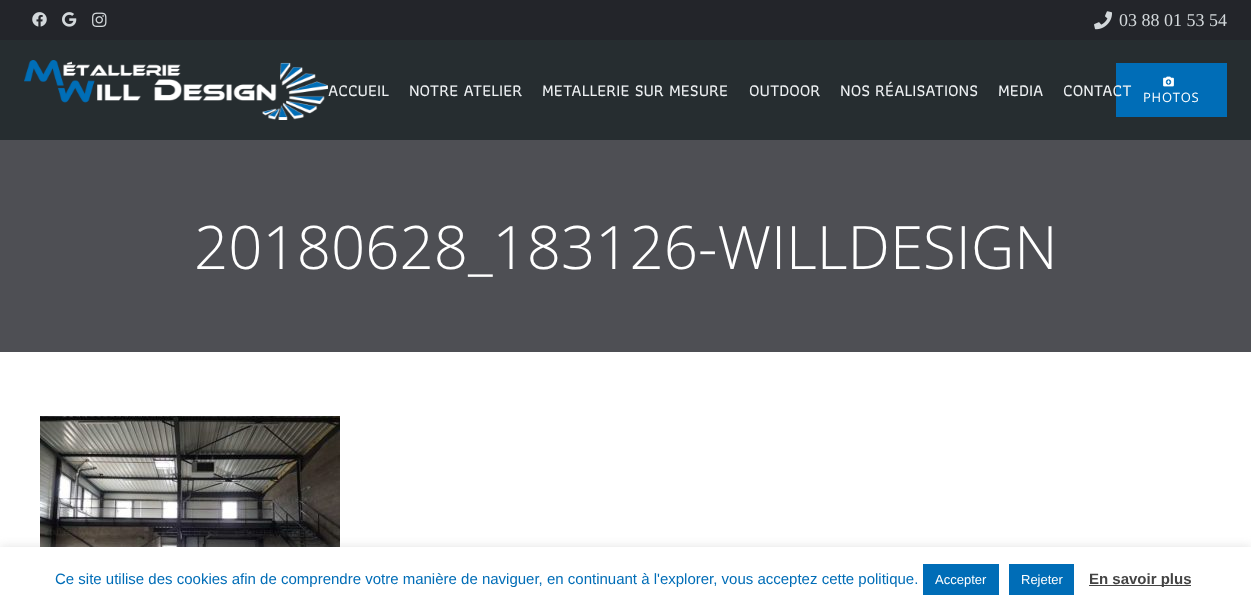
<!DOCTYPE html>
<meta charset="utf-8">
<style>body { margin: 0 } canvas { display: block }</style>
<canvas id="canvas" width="1251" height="612"></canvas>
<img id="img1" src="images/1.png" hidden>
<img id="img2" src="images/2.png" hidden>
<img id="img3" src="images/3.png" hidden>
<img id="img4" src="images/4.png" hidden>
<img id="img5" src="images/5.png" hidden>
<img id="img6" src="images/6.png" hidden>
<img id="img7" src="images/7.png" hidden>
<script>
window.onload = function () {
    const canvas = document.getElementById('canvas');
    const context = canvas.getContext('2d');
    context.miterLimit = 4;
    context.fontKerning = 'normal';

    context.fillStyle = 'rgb(255, 255, 255)';
    context.fillRect(0, 0, 1251, 612);
    context.fillStyle = 'rgb(35, 37, 42)';
    context.fillRect(0, 0, 1251, 40);
    context.drawImage(document.getElementById('img1'), 32, 12, 15, 15);
    context.drawImage(document.getElementById('img2'), 62, 12, 15, 15);
    context.drawImage(document.getElementById('img3'), 92, 12, 15, 15);
    context.drawImage(document.getElementById('img4'), 1094, 11, 18, 19);
    context.fillStyle = 'rgb(38, 45, 48)';
    context.fillRect(0, 40, 1251, 100);
    context.drawImage(document.getElementById('img5'), 24, 60, 304, 60);
    context.fillStyle = 'rgb(0, 109, 183)';
    context.fillRect(1116, 63, 111, 54);
    context.drawImage(document.getElementById('img6'), 1163, 76, 11, 11);
    context.fillStyle = 'rgb(78, 79, 84)';
    context.fillRect(0, 140, 1251, 212);
    context.drawImage(document.getElementById('img7'), 40, 416, 300, 131);
    context.fillStyle = 'rgba(172, 171, 171, 0.3)';
    context.filter = 'blur(5px)';
    context.beginPath();
    context.rect(0, 546, 1251, 65);
    context.fill();
    context.filter = 'none';
    context.fillStyle = 'rgb(255, 255, 255)';
    context.fillRect(0, 547, 1251, 65);
    context.fillStyle = 'rgb(0, 109, 183)';
    context.fillRect(923, 564, 76, 31);
    context.fillRect(1009, 564, 65, 31);
    context.fillStyle = 'rgb(68, 68, 68)';
    context.fillRect(1089, 585, 102, 1);
    context.font = '18px Liberation Serif';
    context.fillStyle = 'rgb(211, 216, 219)';
    context.fillText('03 88 01 53 54', 1119, 26);
    context.font = '500 17px Athiti';
    context.fillStyle = 'rgb(237, 240, 242)';
    context.fillText('ACCUEIL', 328, 96);
    context.fillText('NOTRE ATELIER', 409, 96);
    context.fillText('METALLERIE SUR MESURE', 542, 96);
    context.fillText('OUTDOOR', 749, 96);
    context.fillText('NOS RÉALISATIONS', 840, 96);
    context.fillText('MEDIA', 998, 96);
    context.fillText('CONTACT', 1063, 96);
    context.letterSpacing = '0.75px';
    context.font = '13px Open Sans';
    context.fillStyle = 'rgb(255, 255, 255)';
    context.fillText('PHOTOS', 1143, 102);
    context.letterSpacing = '0px';
    context.font = '300 60px Open Sans';
    context.fillText('20180628_183126-WILLDESIGN', 194, 269);
    context.font = '15px Liberation Sans';
    context.fillStyle = 'rgb(0, 109, 183)';
    context.fillText('Ce site utilise des cookies afin de comprendre votre manière de naviguer, en continuant à l\'explorer, vous acceptez cette politique.', 55, 584);
    context.font = '13px Liberation Sans';
    context.fillStyle = 'rgb(255, 255, 255)';
    context.fillText('Accepter', 935, 584);
    context.fillText('Rejeter', 1021, 584);
    context.font = 'bold 15px Liberation Sans';
    context.fillStyle = 'rgb(68, 68, 68)';
    context.fillText('En savoir plus', 1089, 584);
};
</script>
